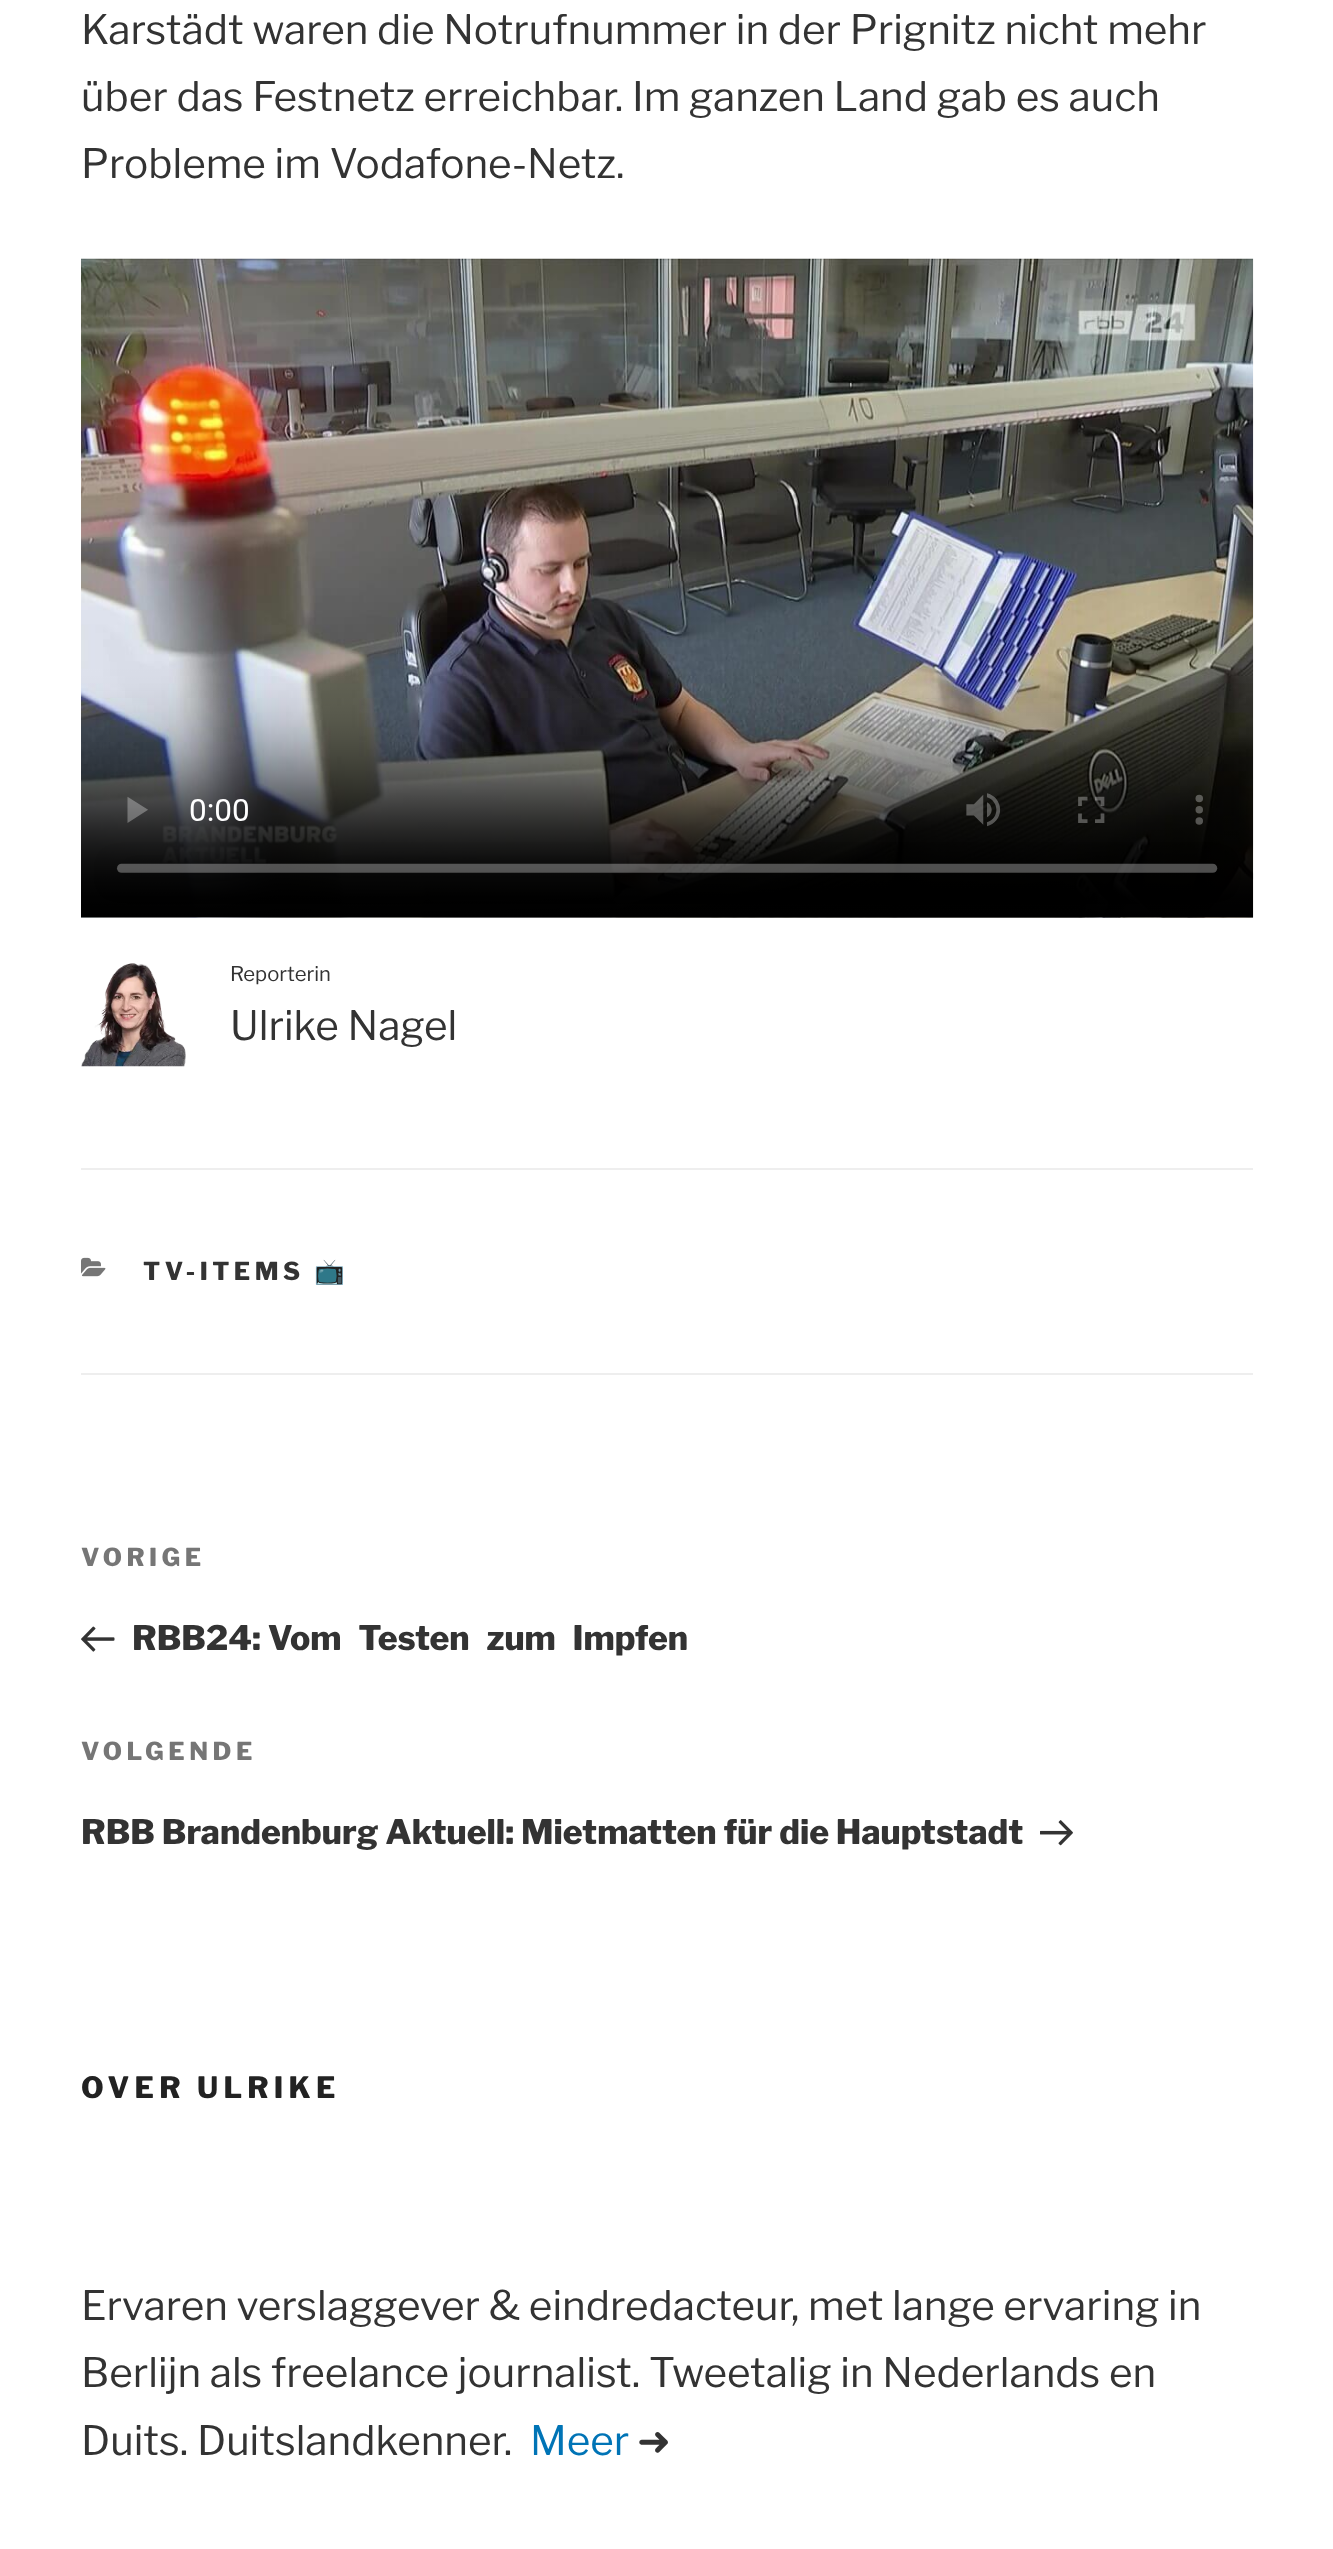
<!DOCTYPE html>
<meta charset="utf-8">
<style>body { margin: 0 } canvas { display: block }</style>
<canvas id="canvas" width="1333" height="2549"></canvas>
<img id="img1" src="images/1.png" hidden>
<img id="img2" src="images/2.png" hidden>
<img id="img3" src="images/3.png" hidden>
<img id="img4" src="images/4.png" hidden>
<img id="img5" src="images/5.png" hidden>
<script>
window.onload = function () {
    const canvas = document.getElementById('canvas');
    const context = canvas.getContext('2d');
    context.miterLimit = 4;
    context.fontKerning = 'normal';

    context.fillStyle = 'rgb(255, 255, 255)';
    context.fillRect(0, 0, 1333, 2549);
    context.drawImage(document.getElementById('img1'), 81, 258, 1173, 660);
    context.drawImage(document.getElementById('img2'), 81, 963, 105, 104);
    context.fillStyle = 'rgb(238, 238, 238)';
    context.fillRect(81, 1168, 1172, 2);
    context.fillRect(81, 1373, 1172, 2);
    context.drawImage(document.getElementById('img3'), 81, 1257, 25, 20);
    context.drawImage(document.getElementById('img4'), 81, 1626, 34, 26);
    context.drawImage(document.getElementById('img5'), 1040, 1820, 33, 26);
    context.font = '100 40.5px Libre Franklin';
    context.fillStyle = 'rgb(51, 51, 51)';
    context.fillText('Karstädt waren die Notrufnummer in der Prignitz nicht mehr', 81, 44);
    context.fillText('über das Festnetz erreichbar. Im ganzen Land gab es auch', 81, 111);
    context.fillText('Probleme im Vodafone-Netz.', 81, 178);
    context.font = '100 20.25px Libre Franklin';
    context.fillText('Reporterin', 230, 981);
    context.font = '100 40.5px Libre Franklin';
    context.fillText('Ulrike Nagel', 230, 1040);
    context.letterSpacing = '4.5px';
    context.font = '100 24.75px "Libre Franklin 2"';
    context.fillText('TV-ITEMS', 143, 1280);
    context.font = 'bold 24.75px Noto Color Emoji';
    context.fillText('📺', 314, 1280);
    context.font = '100 24.75px "Libre Franklin 2"';
    context.fillStyle = 'rgb(118, 118, 118)';
    context.fillText('VORIGE', 81, 1566);
    context.letterSpacing = '0px';
    context.font = '100 33.75px "Libre Franklin 2"';
    context.fillStyle = 'rgb(51, 51, 51)';
    context.fillText('RBB24: Vom Testen zum Impfen', 132, 1650);
    context.letterSpacing = '4.5px';
    context.font = '100 24.75px "Libre Franklin 2"';
    context.fillStyle = 'rgb(118, 118, 118)';
    context.fillText('VOLGENDE', 81, 1760);
    context.letterSpacing = '0px';
    context.font = '100 33.75px "Libre Franklin 2"';
    context.fillStyle = 'rgb(51, 51, 51)';
    context.fillText('RBB Brandenburg Aktuell: Mietmatten für die Hauptstadt', 81, 1844);
    context.letterSpacing = '5.25px';
    context.font = '100 29.25px "Libre Franklin 2"';
    context.fillStyle = 'rgb(34, 34, 34)';
    context.fillText('OVER ULRIKE', 81, 2098);
    context.letterSpacing = '0px';
    context.font = '100 40.5px Libre Franklin';
    context.fillStyle = 'rgb(51, 51, 51)';
    context.fillText('Ervaren verslaggever & eindredacteur, met lange ervaring in', 81, 2320);
    context.fillText('Berlijn als freelance journalist. Tweetalig in Nederlands en', 81, 2387);
    context.fillText('Duits. Duitslandkenner.', 81, 2455);
    context.fillStyle = 'rgb(0, 116, 182)';
    context.fillText('Meer', 530, 2455);
    context.font = '40.5px DejaVu Sans';
    context.fillStyle = 'rgb(51, 51, 51)';
    context.fillText('➜', 637, 2455);
};
</script>
